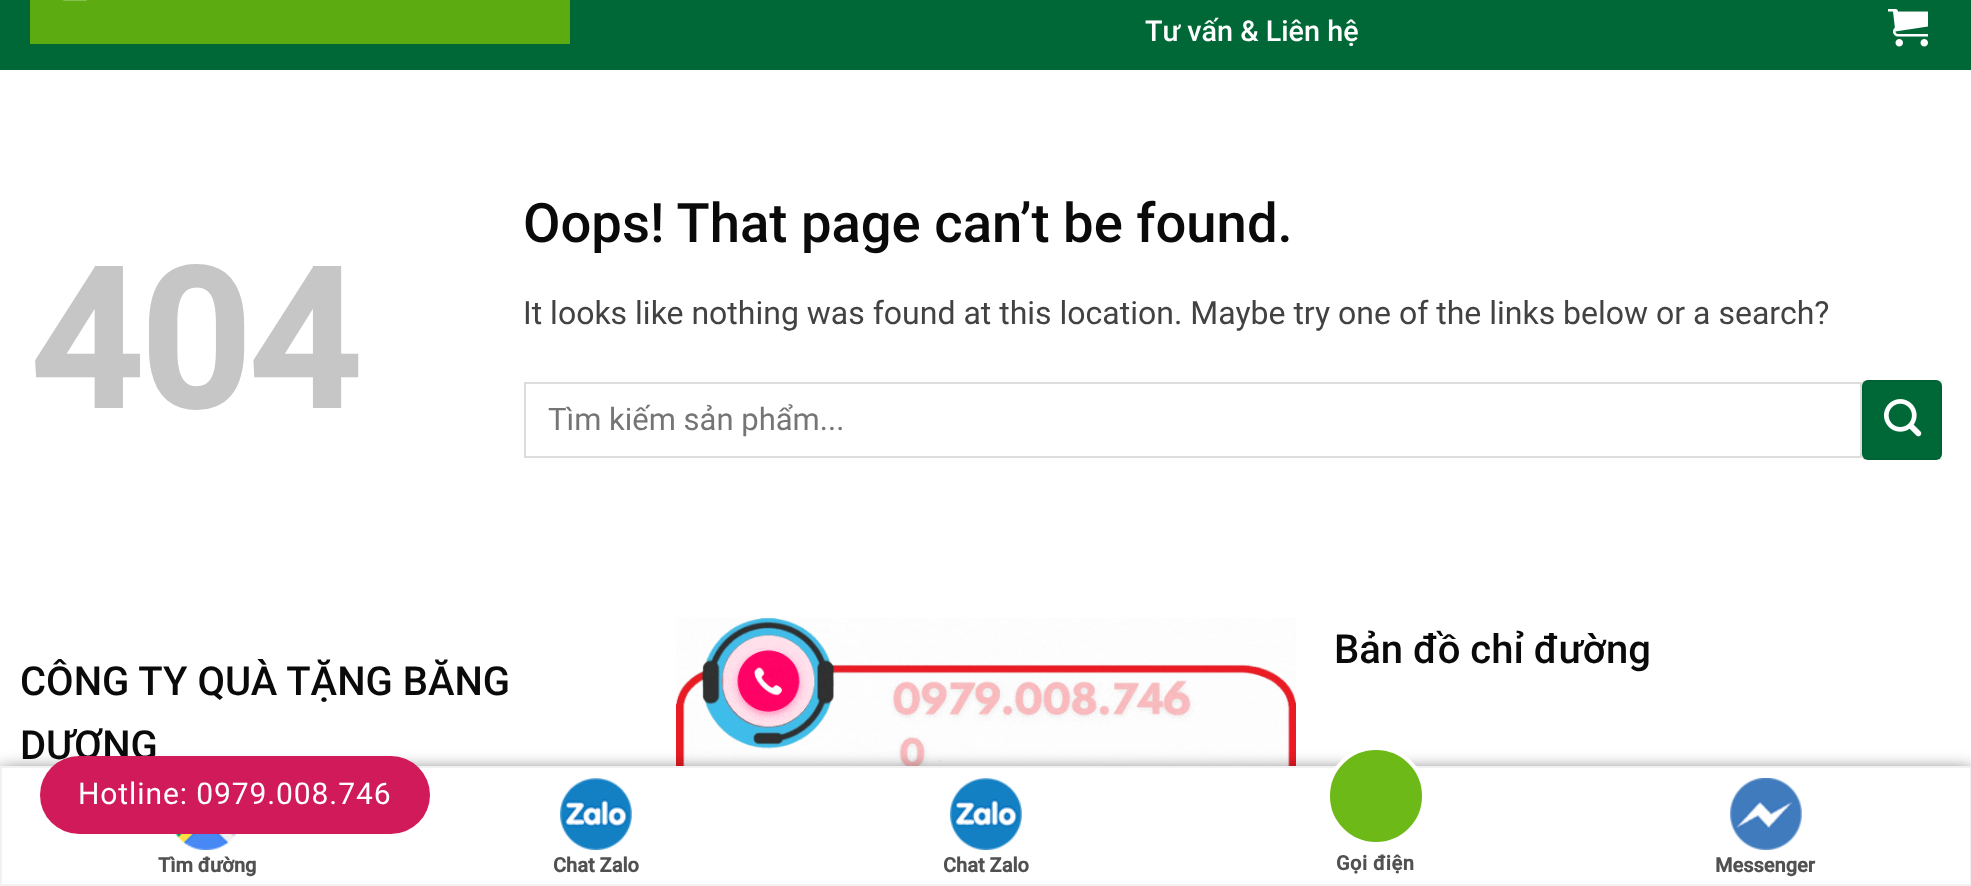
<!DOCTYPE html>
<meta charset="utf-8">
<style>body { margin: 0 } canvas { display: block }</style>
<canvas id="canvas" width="1971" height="886"></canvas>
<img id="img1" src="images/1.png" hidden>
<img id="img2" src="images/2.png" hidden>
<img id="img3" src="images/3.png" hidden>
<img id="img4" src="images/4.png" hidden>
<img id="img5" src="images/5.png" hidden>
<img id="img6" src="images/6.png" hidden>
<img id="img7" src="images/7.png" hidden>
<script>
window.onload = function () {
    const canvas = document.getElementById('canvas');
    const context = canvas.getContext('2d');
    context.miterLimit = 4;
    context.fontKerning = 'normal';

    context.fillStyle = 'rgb(255, 255, 255)';
    context.fillRect(0, 0, 1971, 886);
    context.fillStyle = 'rgb(0, 104, 55)';
    context.fillRect(0, 0, 1971, 70);
    context.fillStyle = 'rgb(92, 171, 16)';
    context.fillRect(30, 0, 540, 44);
    context.drawImage(document.getElementById('img1'), 63, 0, 24, 1);
    context.drawImage(document.getElementById('img2'), 1888, 9, 40, 38);
    context.strokeStyle = 'rgb(221, 221, 221)';
    context.lineWidth = 2;
    context.strokeRect(525, 383, 1336, 74);
    context.fillStyle = 'rgb(0, 104, 55)';
    context.beginPath();
    context.roundRect(1862, 380, 80, 80, 6);
    context.fill();
    context.strokeStyle = 'rgba(0, 0, 0, 0.05)';
    context.strokeRect(1863, 381, 78, 78);
    context.drawImage(document.getElementById('img3'), 1884, 399, 38, 38);
    context.drawImage(document.getElementById('img4'), 676, 618, 620, 148);
    context.fillStyle = 'rgb(0, 0, 0)';
    context.filter = 'blur(10px)';
    context.beginPath();
    context.rect(0, 774, 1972, 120);
    context.fill();
    context.filter = 'none';
    context.fillStyle = 'rgb(255, 255, 255)';
    context.beginPath();
    context.rect(1, 767, 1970, 118);
    context.fill();
    context.strokeStyle = 'rgb(242, 242, 242)';
    context.stroke();
    context.drawImage(document.getElementById('img5'), 175, 834, 62, 16);
    context.drawImage(document.getElementById('img6'), 560, 778, 72, 72);
    context.drawImage(document.getElementById('img6'), 950, 778, 72, 72);
    context.fillStyle = 'rgb(108, 185, 23)';
    context.beginPath();
    context.arc(1376, 796, 48, 0, 2 * Math.PI);
    context.fill();
    context.strokeStyle = 'rgb(255, 255, 255)';
    context.lineWidth = 4;
    context.stroke();
    context.drawImage(document.getElementById('img7'), 1730, 778, 72, 72);
    context.font = '500 28.75px Roboto';
    context.fillStyle = 'rgb(255, 255, 255)';
    context.fillText('Tư vấn & Liên hệ', 1145, 41);
    context.font = 'bold 192px Roboto';
    context.fillStyle = 'rgb(198, 198, 198)';
    context.fillText('404', 30, 408);
    context.font = '500 54.4px Roboto';
    context.fillStyle = 'rgb(10, 10, 10)';
    context.fillText('Oops! That page can’t be found.', 523, 242);
    context.font = '32px Roboto';
    context.fillStyle = 'rgb(66, 66, 66)';
    context.fillText('It looks like nothing was found at this location. Maybe try one of the links below or a search?', 523, 324);
    context.font = '31px Roboto';
    context.fillStyle = 'rgb(117, 117, 117)';
    context.fillText('Tìm kiếm sản phẩm...', 548, 430);
    context.font = '500 40px Roboto';
    context.fillStyle = 'rgb(10, 10, 10)';
    context.fillText('Bản đồ chỉ đường', 1334, 663);
    context.fillText('CÔNG TY QUÀ TẶNG BĂNG', 20, 695);
    context.fillText('DƯƠNG', 20, 759);
    context.fillStyle = 'rgb(209, 26, 89)';
    context.beginPath();
    context.roundRect(40, 756, 390, 78, 39);
    context.fill();
    context.letterSpacing = '0.9px';
    context.font = '30px Roboto';
    context.fillStyle = 'rgb(255, 255, 255)';
    context.fillText('Hotline: 0979.008.746', 78, 804);
    context.letterSpacing = '0px';
    context.font = 'bold 20px Roboto';
    context.fillStyle = 'rgb(81, 81, 81)';
    context.fillText('Tìm đường', 158, 872);
    context.fillText('Chat Zalo', 553, 872);
    context.fillText('Chat Zalo', 943, 872);
    context.letterSpacing = '0.5px';
    context.fillText('Gọi điện', 1336, 870);
    context.letterSpacing = '0px';
    context.fillText('Messenger', 1715, 872);
};
</script>
